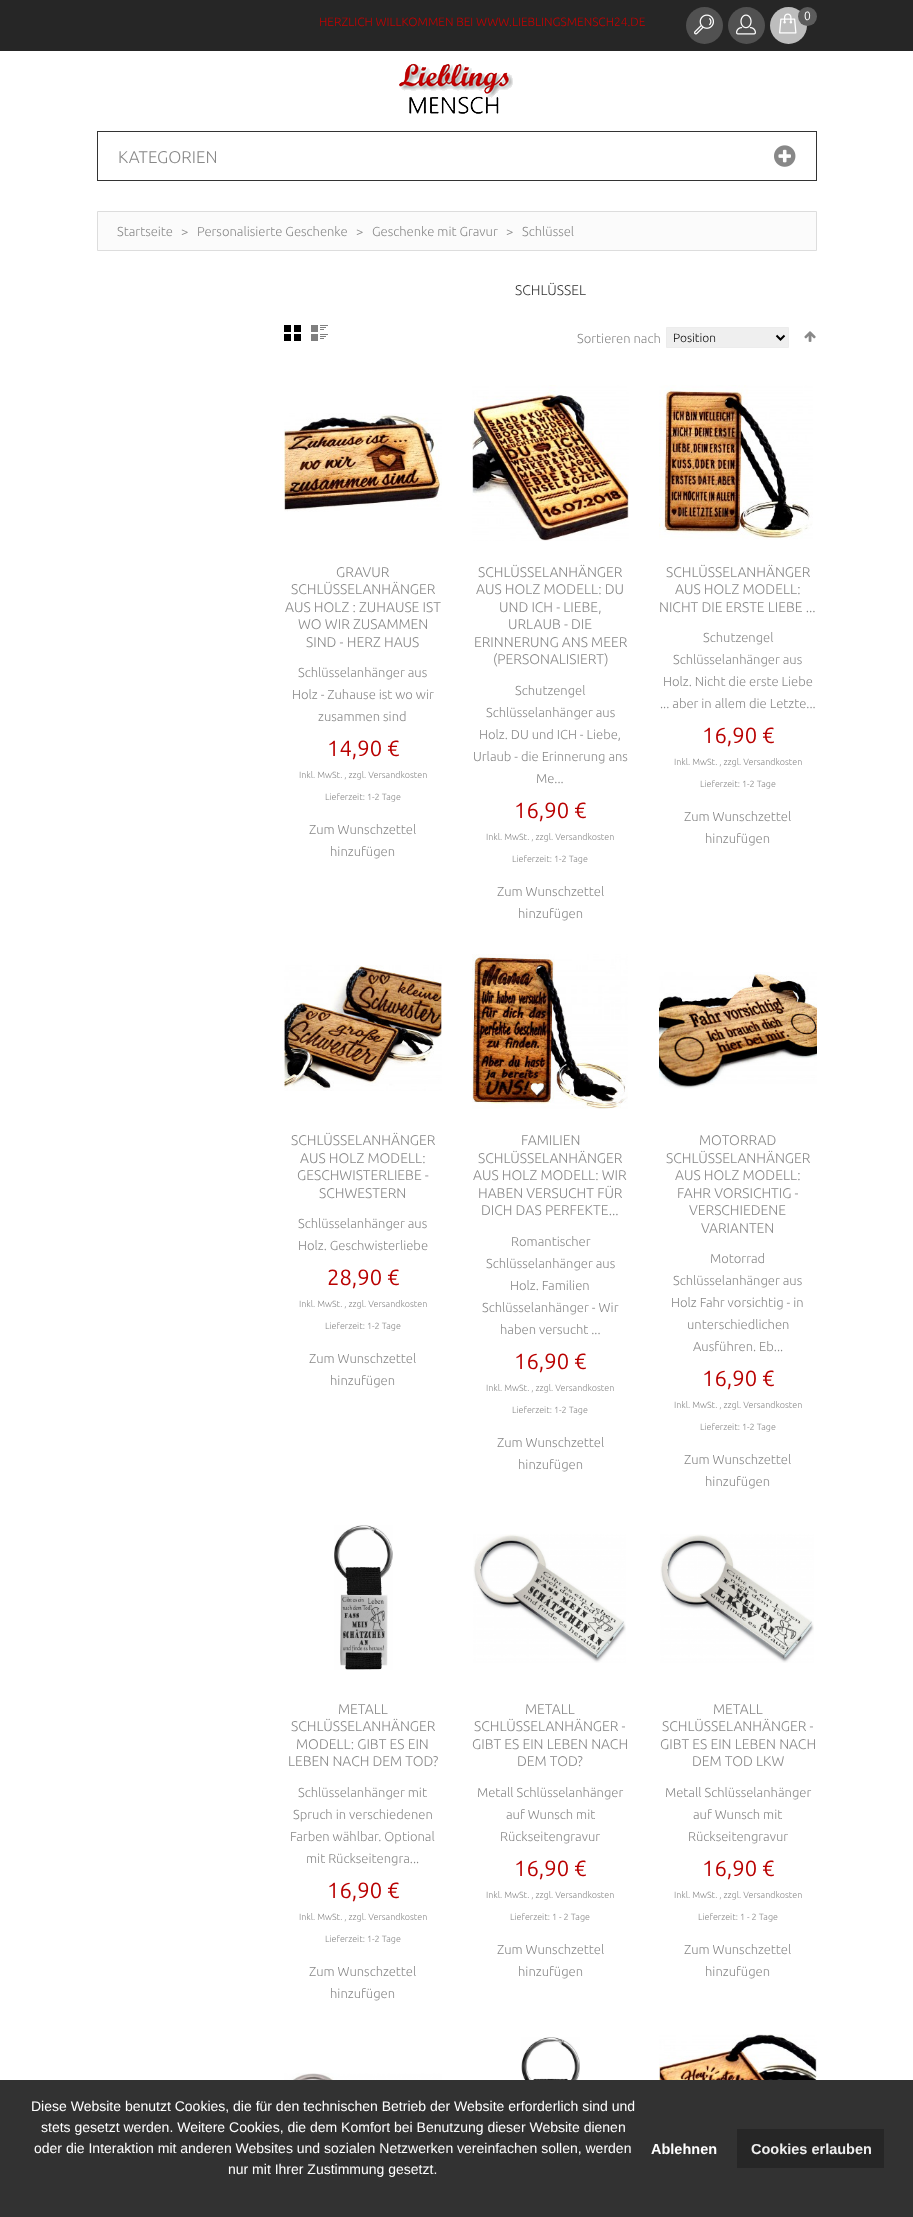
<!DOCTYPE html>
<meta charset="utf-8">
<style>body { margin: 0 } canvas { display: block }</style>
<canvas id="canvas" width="913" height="2217"></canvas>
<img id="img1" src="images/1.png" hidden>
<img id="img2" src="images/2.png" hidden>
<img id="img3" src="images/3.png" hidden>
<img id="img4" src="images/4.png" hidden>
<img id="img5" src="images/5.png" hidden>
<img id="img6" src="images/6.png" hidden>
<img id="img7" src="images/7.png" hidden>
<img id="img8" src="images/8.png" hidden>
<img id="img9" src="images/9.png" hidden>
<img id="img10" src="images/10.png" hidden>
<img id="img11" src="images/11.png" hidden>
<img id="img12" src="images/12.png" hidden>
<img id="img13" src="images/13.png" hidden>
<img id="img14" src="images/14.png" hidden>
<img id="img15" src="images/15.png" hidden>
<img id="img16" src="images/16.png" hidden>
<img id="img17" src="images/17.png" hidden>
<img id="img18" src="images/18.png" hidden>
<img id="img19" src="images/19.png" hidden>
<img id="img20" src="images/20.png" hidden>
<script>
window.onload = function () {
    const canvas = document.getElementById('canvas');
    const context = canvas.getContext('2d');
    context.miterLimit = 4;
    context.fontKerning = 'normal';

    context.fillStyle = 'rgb(38, 38, 38)';
    context.fillRect(0, 0, 913, 2217);
    context.fillStyle = 'rgb(81, 81, 81)';
    context.beginPath();
    context.arc(704.5, 25.5, 18.5, 0, 2 * Math.PI);
    context.fill();
    context.drawImage(document.getElementById('img1'), 694, 14, 20, 21);
    context.beginPath();
    context.arc(746.5, 25.5, 18.5, 0, 2 * Math.PI);
    context.fill();
    context.drawImage(document.getElementById('img2'), 736, 14, 20, 21);
    context.fillStyle = 'rgb(189, 189, 189)';
    context.beginPath();
    context.arc(788.5, 25.5, 18.5, 0, 2 * Math.PI);
    context.fill();
    context.drawImage(document.getElementById('img3'), 779, 13, 18, 21);
    context.fillStyle = 'rgb(92, 92, 92)';
    context.beginPath();
    context.arc(807.5, 16.5, 9.5, 0, 2 * Math.PI);
    context.fill();
    context.fillStyle = 'rgb(255, 255, 255)';
    context.fillRect(0, 51, 913, 2029);
    context.drawImage(document.getElementById('img4'), 399, 63, 114, 51);
    context.strokeStyle = 'rgb(51, 51, 51)';
    context.strokeRect(97.5, 131.5, 719, 49);
    context.drawImage(document.getElementById('img5'), 774, 145, 22, 22);
    context.fillStyle = 'rgb(251, 251, 251)';
    context.beginPath();
    context.rect(97.5, 211.5, 719, 39);
    context.fill();
    context.strokeStyle = 'rgb(221, 221, 221)';
    context.stroke();
    context.drawImage(document.getElementById('img6'), 284, 325, 17, 16);
    context.drawImage(document.getElementById('img7'), 311, 325, 17, 16);
    context.fillStyle = 'rgb(239, 239, 239)';
    context.beginPath();
    context.rect(666.5, 327.5, 122, 20);
    context.fill();
    context.strokeStyle = 'rgb(236, 236, 236)';
    context.stroke();
    context.beginPath();
    context.moveTo(776.5, 335.5);
    context.lineTo(780.5, 339.5);
    context.lineTo(784.5, 335.5);
    context.strokeStyle = 'rgb(0, 0, 0)';
    context.lineWidth = 2;
    context.stroke();
    context.drawImage(document.getElementById('img8'), 804, 331, 12, 11);
    context.drawImage(document.getElementById('img9'), 284, 413, 158, 99);
    context.drawImage(document.getElementById('img10'), 472, 385, 157, 156);
    context.drawImage(document.getElementById('img11'), 659, 385, 154, 155);
    context.drawImage(document.getElementById('img12'), 284, 965, 158, 126);
    context.drawImage(document.getElementById('img13'), 472, 954, 156, 155);
    context.drawImage(document.getElementById('img14'), 659, 972, 158, 117);
    context.drawImage(document.getElementById('img15'), 334, 1525, 59, 145);
    context.drawImage(document.getElementById('img16'), 473, 1534, 153, 129);
    context.drawImage(document.getElementById('img17'), 660, 1534, 154, 129);
    context.drawImage(document.getElementById('img18'), 284, 2073, 158, 7);
    context.drawImage(document.getElementById('img19'), 521, 2037, 59, 43);
    context.drawImage(document.getElementById('img20'), 659, 2034, 158, 46);
    context.fillStyle = 'rgb(50, 50, 50)';
    context.fillRect(0, 2080, 913, 137);
    context.fillStyle = 'rgb(38, 38, 38)';
    context.fillRect(737, 2129, 147, 39);
    context.font = '12px Ubuntu';
    context.fillStyle = 'rgb(255, 255, 255)';
    context.fillText('0', 804, 20);
    context.font = '300 12px Ubuntu';
    context.fillStyle = 'rgb(196, 0, 0)';
    context.fillText('HERZLICH WILLKOMMEN BEI WWW.LIEBLINGSMENSCH24.DE', 319, 26);
    context.font = '300 17px Ubuntu';
    context.fillStyle = 'rgb(136, 136, 136)';
    context.fillText('KATEGORIEN', 118, 163);
    context.font = '300 13px Ubuntu';
    context.fillText('Startseite', 117, 236);
    context.fillText('>', 181, 236);
    context.fillText('Personalisierte Geschenke', 197, 236);
    context.fillText('>', 356, 236);
    context.fillText('Geschenke mit Gravur', 372, 236);
    context.fillText('>', 506, 236);
    context.fillText('Schlüssel', 522, 236);
    context.font = '300 14px Ubuntu';
    context.fillStyle = 'rgb(51, 51, 51)';
    context.fillText('SCHLÜSSEL', 515, 295);
    context.font = '300 13px Ubuntu';
    context.fillStyle = 'rgb(136, 136, 136)';
    context.fillText('Sortieren nach', 577, 343);
    context.font = '300 12px Ubuntu';
    context.fillStyle = 'rgb(0, 0, 0)';
    context.fillText('Position', 673, 342);
    context.font = '300 14px Ubuntu';
    context.fillStyle = 'rgb(136, 136, 136)';
    context.fillText('GRAVUR', 336, 577);
    context.fillText('SCHLÜSSELANHÄNGER', 291, 594);
    context.fillText('AUS HOLZ : ZUHAUSE IST', 285, 612);
    context.fillText('WO WIR ZUSAMMEN', 298, 629);
    context.fillText('SIND - HERZ HAUS', 306, 647);
    context.font = '300 13px Ubuntu';
    context.fillText('Schlüsselanhänger aus', 298, 677);
    context.fillText('Holz - Zuhause ist wo wir', 292, 699);
    context.fillText('zusammen sind', 318, 721);
    context.font = '22px Ubuntu';
    context.fillStyle = 'rgb(185, 1, 0)';
    context.fillText('14,90 €', 327, 756);
    context.font = '300 9px Ubuntu';
    context.fillStyle = 'rgb(136, 136, 136)';
    context.fillText('Inkl. MwSt. , zzgl. Versandkosten', 299, 778);
    context.fillText('Lieferzeit: 1-2 Tage', 325, 800);
    context.font = '300 13px Ubuntu';
    context.fillText('Zum Wunschzettel', 309, 834);
    context.fillText('hinzufügen', 330, 856);
    context.font = '300 14px Ubuntu';
    context.fillText('SCHLÜSSELANHÄNGER', 478, 577);
    context.fillText('AUS HOLZ MODELL: DU', 476, 594);
    context.fillText('UND ICH - LIEBE,', 499, 612);
    context.fillText('URLAUB - DIE', 508, 629);
    context.fillText('ERINNERUNG ANS MEER', 474, 647);
    context.fillText('(PERSONALISIERT)', 493, 664);
    context.font = '300 13px Ubuntu';
    context.fillText('Schutzengel', 515, 695);
    context.fillText('Schlüsselanhänger aus', 486, 717);
    context.fillText('Holz. DU und ICH - Liebe,', 479, 739);
    context.fillText('Urlaub - die Erinnerung ans', 473, 761);
    context.fillText('Me...', 536, 783);
    context.font = '22px Ubuntu';
    context.fillStyle = 'rgb(185, 1, 0)';
    context.fillText('16,90 €', 514, 818);
    context.font = '300 9px Ubuntu';
    context.fillStyle = 'rgb(136, 136, 136)';
    context.fillText('Inkl. MwSt. , zzgl. Versandkosten', 486, 840);
    context.fillText('Lieferzeit: 1-2 Tage', 512, 862);
    context.font = '300 13px Ubuntu';
    context.fillText('Zum Wunschzettel', 497, 896);
    context.fillText('hinzufügen', 518, 918);
    context.font = '300 14px Ubuntu';
    context.fillText('SCHLÜSSELANHÄNGER', 666, 577);
    context.fillText('AUS HOLZ MODELL:', 675, 594);
    context.fillText('NICHT DIE ERSTE LIEBE ...', 659, 612);
    context.font = '300 13px Ubuntu';
    context.fillText('Schutzengel', 703, 642);
    context.fillText('Schlüsselanhänger aus', 673, 664);
    context.fillText('Holz. Nicht die erste Liebe', 663, 686);
    context.fillText('... aber in allem die Letzte...', 660, 708);
    context.font = '22px Ubuntu';
    context.fillStyle = 'rgb(185, 1, 0)';
    context.fillText('16,90 €', 702, 743);
    context.font = '300 9px Ubuntu';
    context.fillStyle = 'rgb(136, 136, 136)';
    context.fillText('Inkl. MwSt. , zzgl. Versandkosten', 674, 765);
    context.fillText('Lieferzeit: 1-2 Tage', 700, 787);
    context.font = '300 13px Ubuntu';
    context.fillText('Zum Wunschzettel', 684, 821);
    context.fillText('hinzufügen', 705, 843);
    context.font = '300 14px Ubuntu';
    context.fillText('SCHLÜSSELANHÄNGER', 291, 1145);
    context.fillText('AUS HOLZ MODELL:', 300, 1163);
    context.fillText('GESCHWISTERLIEBE -', 297, 1180);
    context.fillText('SCHWESTERN', 319, 1198);
    context.font = '300 13px Ubuntu';
    context.fillText('Schlüsselanhänger aus', 298, 1228);
    context.fillText('Holz. Geschwisterliebe', 298, 1250);
    context.font = '22px Ubuntu';
    context.fillStyle = 'rgb(185, 1, 0)';
    context.fillText('28,90 €', 327, 1285);
    context.font = '300 9px Ubuntu';
    context.fillStyle = 'rgb(136, 136, 136)';
    context.fillText('Inkl. MwSt. , zzgl. Versandkosten', 299, 1307);
    context.fillText('Lieferzeit: 1-2 Tage', 325, 1329);
    context.font = '300 13px Ubuntu';
    context.fillText('Zum Wunschzettel', 309, 1363);
    context.fillText('hinzufügen', 330, 1385);
    context.font = '300 14px Ubuntu';
    context.fillText('FAMILIEN', 521, 1145);
    context.fillText('SCHLÜSSELANHÄNGER', 478, 1163);
    context.fillText('AUS HOLZ MODELL: WIR', 473, 1180);
    context.fillText('HABEN VERSUCHT FÜR', 478, 1198);
    context.fillText('DICH DAS PERFEKTE...', 481, 1215);
    context.font = '300 13px Ubuntu';
    context.fillText('Romantischer', 511, 1246);
    context.fillText('Schlüsselanhänger aus', 486, 1268);
    context.fillText('Holz. Familien', 510, 1290);
    context.fillText('Schlüsselanhänger - Wir', 482, 1312);
    context.fillText('haben versucht ...', 500, 1334);
    context.font = '22px Ubuntu';
    context.fillStyle = 'rgb(185, 1, 0)';
    context.fillText('16,90 €', 514, 1369);
    context.font = '300 9px Ubuntu';
    context.fillStyle = 'rgb(136, 136, 136)';
    context.fillText('Inkl. MwSt. , zzgl. Versandkosten', 486, 1391);
    context.fillText('Lieferzeit: 1-2 Tage', 512, 1413);
    context.font = '300 13px Ubuntu';
    context.fillText('Zum Wunschzettel', 497, 1447);
    context.fillText('hinzufügen', 518, 1469);
    context.font = '300 14px Ubuntu';
    context.fillText('MOTORRAD', 699, 1145);
    context.fillText('SCHLÜSSELANHÄNGER', 666, 1163);
    context.fillText('AUS HOLZ MODELL:', 675, 1180);
    context.fillText('FAHR VORSICHTIG -', 677, 1198);
    context.fillText('VERSCHIEDENE', 689, 1215);
    context.fillText('VARIANTEN', 701, 1233);
    context.font = '300 13px Ubuntu';
    context.fillText('Motorrad', 710, 1263);
    context.fillText('Schlüsselanhänger aus', 673, 1285);
    context.fillText('Holz Fahr vorsichtig - in', 671, 1307);
    context.fillText('unterschiedlichen', 687, 1329);
    context.fillText('Ausführen. Eb...', 693, 1351);
    context.font = '22px Ubuntu';
    context.fillStyle = 'rgb(185, 1, 0)';
    context.fillText('16,90 €', 702, 1386);
    context.font = '300 9px Ubuntu';
    context.fillStyle = 'rgb(136, 136, 136)';
    context.fillText('Inkl. MwSt. , zzgl. Versandkosten', 674, 1408);
    context.fillText('Lieferzeit: 1-2 Tage', 700, 1430);
    context.font = '300 13px Ubuntu';
    context.fillText('Zum Wunschzettel', 684, 1464);
    context.fillText('hinzufügen', 705, 1486);
    context.font = '300 14px Ubuntu';
    context.fillText('METALL', 338, 1714);
    context.fillText('SCHLÜSSELANHÄNGER', 291, 1731);
    context.fillText('MODELL: GIBT ES EIN', 296, 1749);
    context.fillText('LEBEN NACH DEM TOD?', 288, 1766);
    context.font = '300 13px Ubuntu';
    context.fillText('Schlüsselanhänger mit', 298, 1797);
    context.fillText('Spruch in verschiedenen', 293, 1819);
    context.fillText('Farben wählbar. Optional', 290, 1841);
    context.fillText('mit Rückseitengra...', 306, 1863);
    context.font = '22px Ubuntu';
    context.fillStyle = 'rgb(185, 1, 0)';
    context.fillText('16,90 €', 327, 1898);
    context.font = '300 9px Ubuntu';
    context.fillStyle = 'rgb(136, 136, 136)';
    context.fillText('Inkl. MwSt. , zzgl. Versandkosten', 299, 1920);
    context.fillText('Lieferzeit: 1-2 Tage', 325, 1942);
    context.font = '300 13px Ubuntu';
    context.fillText('Zum Wunschzettel', 309, 1976);
    context.fillText('hinzufügen', 330, 1998);
    context.font = '300 14px Ubuntu';
    context.fillText('METALL', 525, 1714);
    context.fillText('SCHLÜSSELANHÄNGER -', 474, 1731);
    context.fillText('GIBT ES EIN LEBEN NACH', 472, 1749);
    context.fillText('DEM TOD?', 517, 1766);
    context.font = '300 13px Ubuntu';
    context.fillText('Metall Schlüsselanhänger', 477, 1797);
    context.fillText('auf Wunsch mit', 506, 1819);
    context.fillText('Rückseitengravur', 500, 1841);
    context.font = '22px Ubuntu';
    context.fillStyle = 'rgb(185, 1, 0)';
    context.fillText('16,90 €', 514, 1876);
    context.font = '300 9px Ubuntu';
    context.fillStyle = 'rgb(136, 136, 136)';
    context.fillText('Inkl. MwSt. , zzgl. Versandkosten', 486, 1898);
    context.fillText('Lieferzeit: 1 - 2 Tage', 510, 1920);
    context.font = '300 13px Ubuntu';
    context.fillText('Zum Wunschzettel', 497, 1954);
    context.fillText('hinzufügen', 518, 1976);
    context.font = '300 14px Ubuntu';
    context.fillText('METALL', 713, 1714);
    context.fillText('SCHLÜSSELANHÄNGER -', 662, 1731);
    context.fillText('GIBT ES EIN LEBEN NACH', 660, 1749);
    context.fillText('DEM TOD LKW', 692, 1766);
    context.font = '300 13px Ubuntu';
    context.fillText('Metall Schlüsselanhänger', 665, 1797);
    context.fillText('auf Wunsch mit', 693, 1819);
    context.fillText('Rückseitengravur', 688, 1841);
    context.font = '22px Ubuntu';
    context.fillStyle = 'rgb(185, 1, 0)';
    context.fillText('16,90 €', 702, 1876);
    context.font = '300 9px Ubuntu';
    context.fillStyle = 'rgb(136, 136, 136)';
    context.fillText('Inkl. MwSt. , zzgl. Versandkosten', 674, 1898);
    context.fillText('Lieferzeit: 1 - 2 Tage', 698, 1920);
    context.font = '300 13px Ubuntu';
    context.fillText('Zum Wunschzettel', 684, 1954);
    context.fillText('hinzufügen', 705, 1976);
    context.font = '14px Liberation Sans';
    context.fillStyle = 'rgb(255, 255, 255)';
    context.fillText('Diese Website benutzt Cookies, die für den technischen Betrieb der Website erforderlich sind und', 31, 2111);
    context.fillText('stets gesetzt werden. Weitere Cookies, die dem Komfort bei Benutzung dieser Website dienen', 41, 2132);
    context.fillText('oder die Interaktion mit anderen Websites und sozialen Netzwerken vereinfachen sollen, werden', 34, 2153);
    context.fillText('nur mit Ihrer Zustimmung gesetzt.', 228, 2174);
    context.font = 'bold 14.5px Liberation Sans';
    context.fillText('Ablehnen', 651, 2154);
    context.fillStyle = 'rgb(238, 238, 238)';
    context.fillText('Cookies erlauben', 751, 2154);
};
</script>
